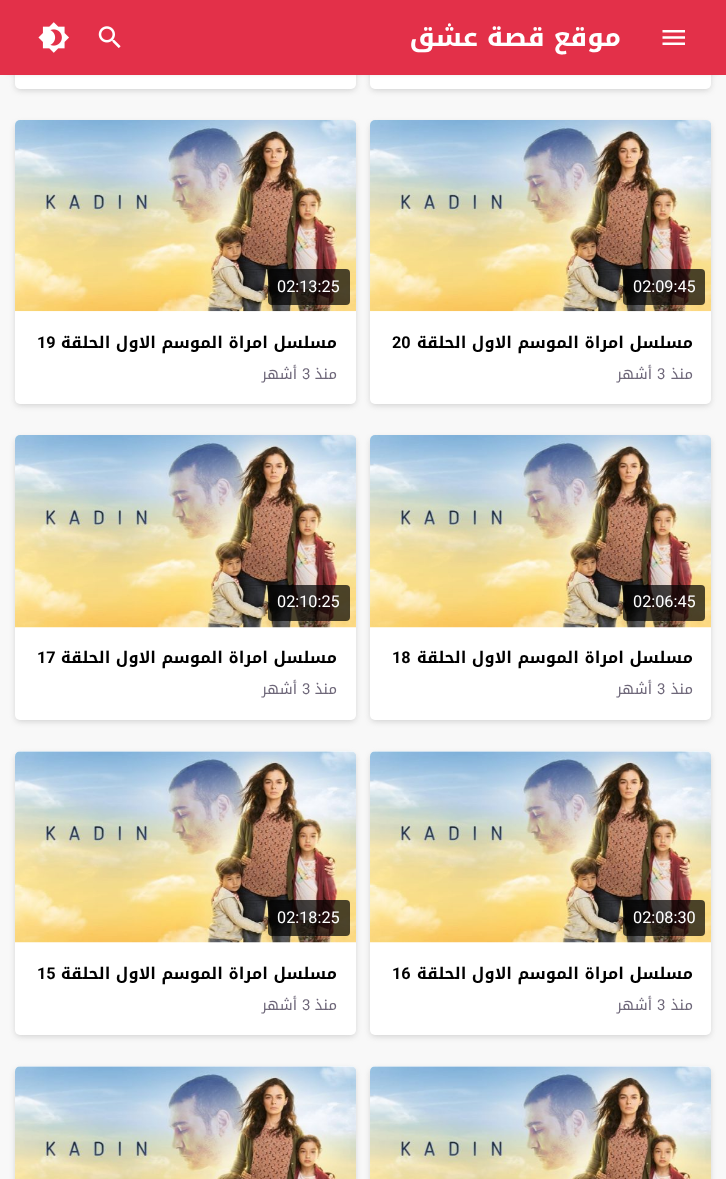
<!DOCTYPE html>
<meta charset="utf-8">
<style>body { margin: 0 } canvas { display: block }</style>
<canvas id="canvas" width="726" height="1179"></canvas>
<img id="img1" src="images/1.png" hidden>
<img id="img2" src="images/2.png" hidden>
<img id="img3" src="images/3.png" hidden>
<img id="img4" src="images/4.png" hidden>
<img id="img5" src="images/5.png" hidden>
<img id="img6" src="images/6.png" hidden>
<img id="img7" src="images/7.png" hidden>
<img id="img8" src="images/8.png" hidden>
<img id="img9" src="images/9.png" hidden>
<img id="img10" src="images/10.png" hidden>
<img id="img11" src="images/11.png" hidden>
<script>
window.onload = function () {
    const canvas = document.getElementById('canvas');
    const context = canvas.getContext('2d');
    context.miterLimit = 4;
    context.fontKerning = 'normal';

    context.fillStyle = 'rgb(248, 248, 248)';
    context.fillRect(0, 0, 726, 1179);
    context.fillStyle = 'rgb(204, 204, 204)';
    context.filter = 'blur(3px)';
    context.beginPath();
    context.roundRect(371, -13, 339, 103, 4);
    context.fill();
    context.filter = 'none';
    context.fillStyle = 'rgb(255, 255, 255)';
    context.beginPath();
    context.roundRect(370, -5, 341, 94, 5);
    context.fill();
    context.fillStyle = 'rgb(204, 204, 204)';
    context.filter = 'blur(3px)';
    context.beginPath();
    context.roundRect(16, -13, 339, 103, 4);
    context.fill();
    context.filter = 'none';
    context.fillStyle = 'rgb(255, 255, 255)';
    context.beginPath();
    context.roundRect(15, -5, 341, 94, 5);
    context.fill();
    context.fillStyle = 'rgb(153, 153, 153)';
    context.filter = 'blur(3px)';
    context.beginPath();
    context.rect(6, 9, 714, 62);
    context.fill();
    context.filter = 'none';
    context.fillStyle = 'rgb(227, 48, 73)';
    context.fillRect(0, 0, 726, 75);
    context.drawImage(document.getElementById('img1'), 662, 30, 23, 15);
    context.drawImage(document.getElementById('img2'), 98, 26, 23, 22);
    context.drawImage(document.getElementById('img3'), 38, 22, 31, 31);
    context.fillStyle = 'rgb(204, 204, 204)';
    context.filter = 'blur(3px)';
    context.beginPath();
    context.roundRect(371, 124, 339, 281, 4);
    context.fill();
    context.filter = 'none';
    context.fillStyle = 'rgb(255, 255, 255)';
    context.beginPath();
    context.roundRect(370, 120, 341, 284, 5);
    context.fill();
    context.drawImage(document.getElementById('img4'), 370, 120, 341, 192);
    context.fillStyle = 'rgba(0, 0, 0, 0.7)';
    context.beginPath();
    context.roundRect(623, 269, 82, 36, 4);
    context.fill();
    context.fillStyle = 'rgb(204, 204, 204)';
    context.filter = 'blur(3px)';
    context.beginPath();
    context.roundRect(16, 124, 339, 281, 4);
    context.fill();
    context.filter = 'none';
    context.fillStyle = 'rgb(255, 255, 255)';
    context.beginPath();
    context.roundRect(15, 120, 341, 284, 5);
    context.fill();
    context.drawImage(document.getElementById('img5'), 15, 120, 341, 192);
    context.fillStyle = 'rgba(0, 0, 0, 0.7)';
    context.beginPath();
    context.roundRect(268, 269, 82, 36, 4);
    context.fill();
    context.fillStyle = 'rgb(204, 204, 204)';
    context.filter = 'blur(3px)';
    context.beginPath();
    context.roundRect(371, 439, 339, 282, 4);
    context.fill();
    context.filter = 'none';
    context.fillStyle = 'rgb(255, 255, 255)';
    context.beginPath();
    context.roundRect(370, 435, 341, 285, 5);
    context.fill();
    context.drawImage(document.getElementById('img6'), 370, 435, 341, 193);
    context.fillStyle = 'rgba(0, 0, 0, 0.7)';
    context.beginPath();
    context.roundRect(623, 585, 82, 36, 4);
    context.fill();
    context.fillStyle = 'rgb(204, 204, 204)';
    context.filter = 'blur(3px)';
    context.beginPath();
    context.roundRect(16, 439, 339, 282, 4);
    context.fill();
    context.filter = 'none';
    context.fillStyle = 'rgb(255, 255, 255)';
    context.beginPath();
    context.roundRect(15, 435, 341, 285, 5);
    context.fill();
    context.drawImage(document.getElementById('img7'), 15, 435, 341, 193);
    context.fillStyle = 'rgba(0, 0, 0, 0.7)';
    context.beginPath();
    context.roundRect(268, 585, 82, 36, 4);
    context.fill();
    context.fillStyle = 'rgb(204, 204, 204)';
    context.filter = 'blur(3px)';
    context.beginPath();
    context.roundRect(371, 755, 339, 281, 4);
    context.fill();
    context.filter = 'none';
    context.fillStyle = 'rgb(255, 255, 255)';
    context.beginPath();
    context.roundRect(370, 751, 341, 284, 5);
    context.fill();
    context.drawImage(document.getElementById('img8'), 370, 751, 341, 192);
    context.fillStyle = 'rgba(0, 0, 0, 0.7)';
    context.beginPath();
    context.roundRect(623, 900, 82, 36, 4);
    context.fill();
    context.fillStyle = 'rgb(204, 204, 204)';
    context.filter = 'blur(3px)';
    context.beginPath();
    context.roundRect(16, 755, 339, 281, 4);
    context.fill();
    context.filter = 'none';
    context.fillStyle = 'rgb(255, 255, 255)';
    context.beginPath();
    context.roundRect(15, 751, 341, 284, 5);
    context.fill();
    context.drawImage(document.getElementById('img9'), 15, 751, 341, 192);
    context.fillStyle = 'rgba(0, 0, 0, 0.7)';
    context.beginPath();
    context.roundRect(268, 900, 82, 36, 4);
    context.fill();
    context.fillStyle = 'rgb(204, 204, 204)';
    context.filter = 'blur(3px)';
    context.beginPath();
    context.roundRect(371, 1070, 339, 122, 4);
    context.fill();
    context.filter = 'none';
    context.fillStyle = 'rgb(255, 255, 255)';
    context.beginPath();
    context.roundRect(370, 1066, 341, 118, 5);
    context.fill();
    context.drawImage(document.getElementById('img10'), 370, 1066, 341, 113);
    context.fillStyle = 'rgb(204, 204, 204)';
    context.filter = 'blur(3px)';
    context.beginPath();
    context.roundRect(16, 1070, 339, 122, 4);
    context.fill();
    context.filter = 'none';
    context.fillStyle = 'rgb(255, 255, 255)';
    context.beginPath();
    context.roundRect(15, 1066, 341, 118, 5);
    context.fill();
    context.drawImage(document.getElementById('img11'), 15, 1066, 341, 113);
    context.direction = 'rtl';
    context.font = 'bold 26.25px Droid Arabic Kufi';
    context.fillText('موقع قصة عشق', 621, 46);
    context.direction = 'ltr';
    context.font = '16.25px Roboto';
    context.fillText('02:09:45', 633, 292);
    context.direction = 'rtl';
    context.font = 'bold 16.25px Droid Arabic Kufi';
    context.fillStyle = 'rgb(0, 0, 0)';
    context.fillText('مسلسل امراة الموسم الاول الحلقة', 693, 348);
    context.direction = 'ltr';
    context.font = 'bold 16.25px Roboto';
    context.fillText('20', 392, 348);
    context.direction = 'rtl';
    context.font = '15px Droid Arabic Kufi';
    context.fillStyle = 'rgb(110, 103, 121)';
    context.fillText('منذ', 693, 379);
    context.direction = 'ltr';
    context.font = '15px Roboto';
    context.fillText('3', 657, 379);
    context.direction = 'rtl';
    context.font = '15px Droid Arabic Kufi';
    context.fillText('أشهر', 652, 379);
    context.direction = 'ltr';
    context.font = '16.25px Roboto';
    context.fillStyle = 'rgb(255, 255, 255)';
    context.fillText('02:13:25', 277, 292);
    context.direction = 'rtl';
    context.font = 'bold 16.25px Droid Arabic Kufi';
    context.fillStyle = 'rgb(0, 0, 0)';
    context.fillText('مسلسل امراة الموسم الاول الحلقة', 337, 348);
    context.direction = 'ltr';
    context.font = 'bold 16.25px Roboto';
    context.fillText('19', 37, 348);
    context.direction = 'rtl';
    context.font = '15px Droid Arabic Kufi';
    context.fillStyle = 'rgb(110, 103, 121)';
    context.fillText('منذ', 337, 379);
    context.direction = 'ltr';
    context.font = '15px Roboto';
    context.fillText('3', 302, 379);
    context.direction = 'rtl';
    context.font = '15px Droid Arabic Kufi';
    context.fillText('أشهر', 297, 379);
    context.direction = 'ltr';
    context.font = '16.25px Roboto';
    context.fillStyle = 'rgb(255, 255, 255)';
    context.fillText('02:06:45', 633, 607);
    context.direction = 'rtl';
    context.font = 'bold 16.25px Droid Arabic Kufi';
    context.fillStyle = 'rgb(0, 0, 0)';
    context.fillText('مسلسل امراة الموسم الاول الحلقة', 693, 663);
    context.direction = 'ltr';
    context.font = 'bold 16.25px Roboto';
    context.fillText('18', 392, 663);
    context.direction = 'rtl';
    context.font = '15px Droid Arabic Kufi';
    context.fillStyle = 'rgb(110, 103, 121)';
    context.fillText('منذ', 693, 694);
    context.direction = 'ltr';
    context.font = '15px Roboto';
    context.fillText('3', 657, 694);
    context.direction = 'rtl';
    context.font = '15px Droid Arabic Kufi';
    context.fillText('أشهر', 652, 694);
    context.direction = 'ltr';
    context.font = '16.25px Roboto';
    context.fillStyle = 'rgb(255, 255, 255)';
    context.fillText('02:10:25', 277, 607);
    context.direction = 'rtl';
    context.font = 'bold 16.25px Droid Arabic Kufi';
    context.fillStyle = 'rgb(0, 0, 0)';
    context.fillText('مسلسل امراة الموسم الاول الحلقة', 337, 663);
    context.direction = 'ltr';
    context.font = 'bold 16.25px Roboto';
    context.fillText('17', 37, 663);
    context.direction = 'rtl';
    context.font = '15px Droid Arabic Kufi';
    context.fillStyle = 'rgb(110, 103, 121)';
    context.fillText('منذ', 337, 694);
    context.direction = 'ltr';
    context.font = '15px Roboto';
    context.fillText('3', 302, 694);
    context.direction = 'rtl';
    context.font = '15px Droid Arabic Kufi';
    context.fillText('أشهر', 297, 694);
    context.direction = 'ltr';
    context.font = '16.25px Roboto';
    context.fillStyle = 'rgb(255, 255, 255)';
    context.fillText('02:08:30', 633, 923);
    context.direction = 'rtl';
    context.font = 'bold 16.25px Droid Arabic Kufi';
    context.fillStyle = 'rgb(0, 0, 0)';
    context.fillText('مسلسل امراة الموسم الاول الحلقة', 693, 979);
    context.direction = 'ltr';
    context.font = 'bold 16.25px Roboto';
    context.fillText('16', 392, 979);
    context.direction = 'rtl';
    context.font = '15px Droid Arabic Kufi';
    context.fillStyle = 'rgb(110, 103, 121)';
    context.fillText('منذ', 693, 1010);
    context.direction = 'ltr';
    context.font = '15px Roboto';
    context.fillText('3', 657, 1010);
    context.direction = 'rtl';
    context.font = '15px Droid Arabic Kufi';
    context.fillText('أشهر', 652, 1010);
    context.direction = 'ltr';
    context.font = '16.25px Roboto';
    context.fillStyle = 'rgb(255, 255, 255)';
    context.fillText('02:18:25', 277, 923);
    context.direction = 'rtl';
    context.font = 'bold 16.25px Droid Arabic Kufi';
    context.fillStyle = 'rgb(0, 0, 0)';
    context.fillText('مسلسل امراة الموسم الاول الحلقة', 337, 979);
    context.direction = 'ltr';
    context.font = 'bold 16.25px Roboto';
    context.fillText('15', 37, 979);
    context.direction = 'rtl';
    context.font = '15px Droid Arabic Kufi';
    context.fillStyle = 'rgb(110, 103, 121)';
    context.fillText('منذ', 337, 1010);
    context.direction = 'ltr';
    context.font = '15px Roboto';
    context.fillText('3', 302, 1010);
    context.direction = 'rtl';
    context.font = '15px Droid Arabic Kufi';
    context.fillText('أشهر', 297, 1010);
};
</script>
